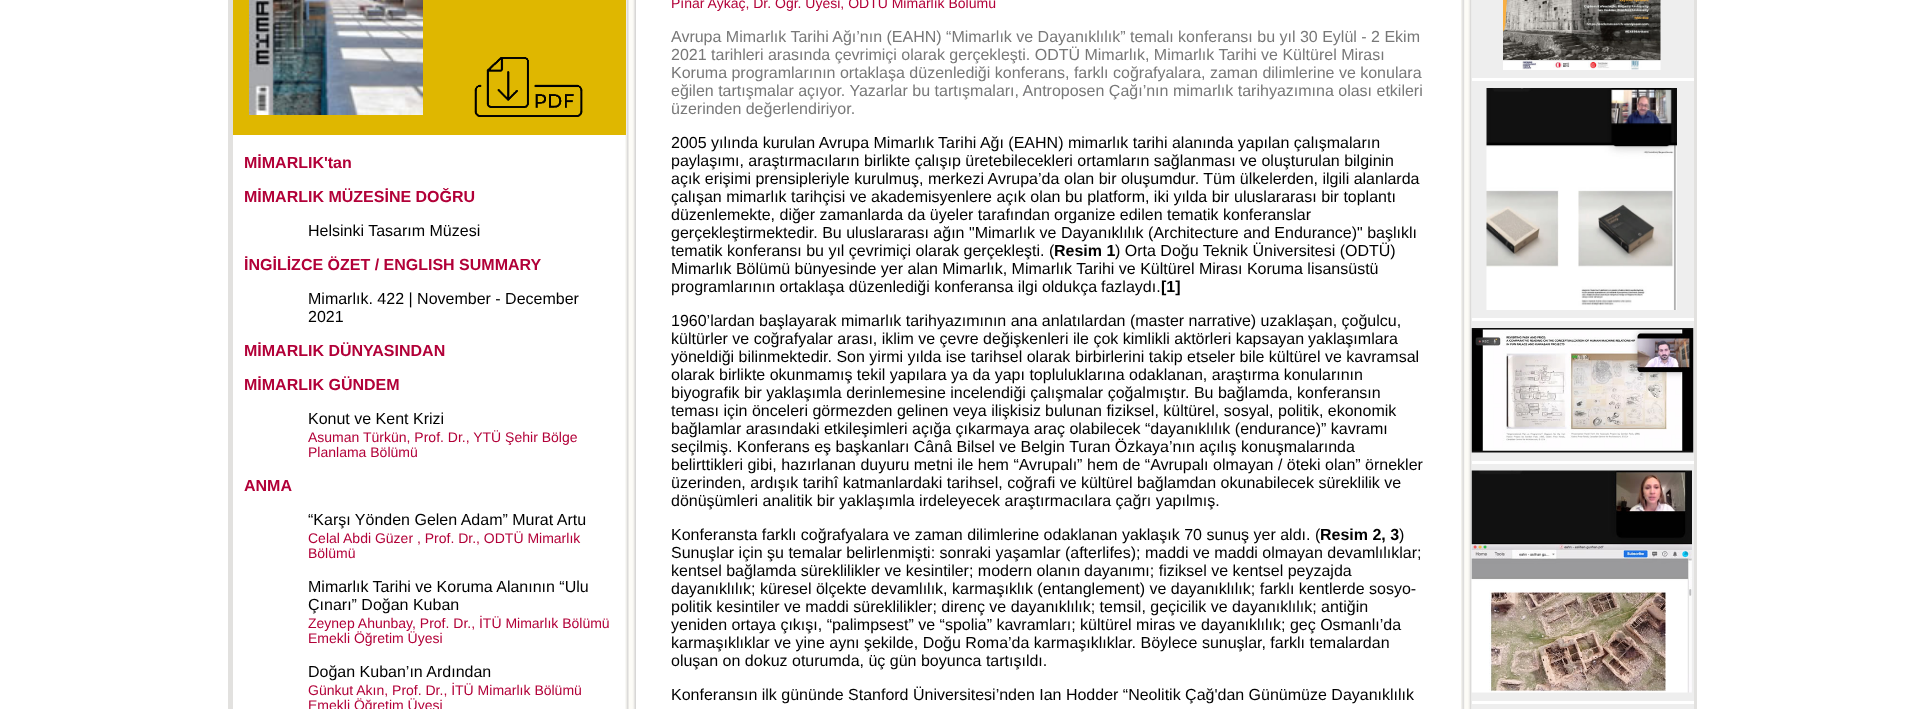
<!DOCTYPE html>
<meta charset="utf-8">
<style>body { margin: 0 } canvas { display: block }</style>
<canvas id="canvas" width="1924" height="709"></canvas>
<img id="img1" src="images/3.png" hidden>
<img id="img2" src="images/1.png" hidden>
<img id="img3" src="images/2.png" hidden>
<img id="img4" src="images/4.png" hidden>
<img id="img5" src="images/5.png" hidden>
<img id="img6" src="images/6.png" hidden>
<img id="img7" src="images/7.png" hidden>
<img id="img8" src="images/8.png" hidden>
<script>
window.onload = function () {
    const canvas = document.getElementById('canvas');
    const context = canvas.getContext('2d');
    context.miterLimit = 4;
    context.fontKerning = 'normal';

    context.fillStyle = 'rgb(255, 255, 255)';
    context.fillRect(0, 0, 1924, 709);
    context.fillStyle = 'rgb(226, 225, 223)';
    context.fillRect(228, 0, 5, 709);
    context.drawImage(document.getElementById('img1'), 625, 0, 11, 709);
    context.fillStyle = 'rgb(223, 183, 0)';
    context.fillRect(233, 0, 393, 135);
    context.drawImage(document.getElementById('img2'), 249, 0, 174, 115);
    context.drawImage(document.getElementById('img3'), 474, 57, 109, 60);
    context.drawImage(document.getElementById('img4'), 1461, 0, 11, 709);
    context.fillStyle = 'rgb(238, 238, 238)';
    context.fillRect(1472, 0, 222, 78);
    context.drawImage(document.getElementById('img5'), 1503, 0, 158, 70);
    context.fillRect(1472, 81, 222, 237);
    context.drawImage(document.getElementById('img6'), 1486, 88, 191, 222);
    context.fillRect(1472, 321, 222, 140);
    context.drawImage(document.getElementById('img7'), 1471, 328, 223, 125);
    context.fillRect(1472, 464, 222, 237);
    context.drawImage(document.getElementById('img8'), 1471, 470, 221, 223);
    context.fillRect(1472, 704, 222, 5);
    context.fillStyle = 'rgb(226, 225, 223)';
    context.fillRect(1694, 0, 3, 709);
    context.font = 'bold 16px Liberation Sans';
    context.fillStyle = 'rgb(178, 0, 56)';
    context.fillText('MİMARLIK\'tan', 244, 168);
    context.fillText('MİMARLIK MÜZESİNE DOĞRU', 244, 202);
    context.font = '16px Liberation Sans';
    context.fillStyle = 'rgb(0, 0, 0)';
    context.fillText('Helsinki Tasarım Müzesi', 308, 236);
    context.font = 'bold 16px Liberation Sans';
    context.fillStyle = 'rgb(178, 0, 56)';
    context.fillText('İNGİLİZCE ÖZET / ENGLISH SUMMARY', 244, 270);
    context.font = '16px Liberation Sans';
    context.fillStyle = 'rgb(0, 0, 0)';
    context.fillText('Mimarlık. 422 | November - December', 308, 304);
    context.fillText('2021', 308, 322);
    context.font = 'bold 16px Liberation Sans';
    context.fillStyle = 'rgb(178, 0, 56)';
    context.fillText('MİMARLIK DÜNYASINDAN', 244, 356);
    context.fillText('MİMARLIK GÜNDEM', 244, 390);
    context.font = '16px Liberation Sans';
    context.fillStyle = 'rgb(0, 0, 0)';
    context.fillText('Konut ve Kent Krizi', 308, 424);
    context.font = '14px Liberation Sans';
    context.fillStyle = 'rgb(178, 0, 56)';
    context.fillText('Asuman Türkün, Prof. Dr., YTÜ Şehir Bölge', 308, 442);
    context.fillText('Planlama Bölümü', 308, 457);
    context.font = 'bold 16px Liberation Sans';
    context.fillText('ANMA', 244, 491);
    context.font = '16px Liberation Sans';
    context.fillStyle = 'rgb(0, 0, 0)';
    context.fillText('“Karşı Yönden Gelen Adam” Murat Artu', 308, 525);
    context.font = '14px Liberation Sans';
    context.fillStyle = 'rgb(178, 0, 56)';
    context.fillText('Celal Abdi Güzer , Prof. Dr., ODTÜ Mimarlık', 308, 543);
    context.fillText('Bölümü', 308, 558);
    context.font = '16px Liberation Sans';
    context.fillStyle = 'rgb(0, 0, 0)';
    context.fillText('Mimarlık Tarihi ve Koruma Alanının “Ulu', 308, 592);
    context.fillText('Çınarı” Doğan Kuban', 308, 610);
    context.font = '14px Liberation Sans';
    context.fillStyle = 'rgb(178, 0, 56)';
    context.fillText('Zeynep Ahunbay, Prof. Dr., İTÜ Mimarlık Bölümü', 308, 628);
    context.fillText('Emekli Öğretim Üyesi', 308, 643);
    context.font = '16px Liberation Sans';
    context.fillStyle = 'rgb(0, 0, 0)';
    context.fillText('Doğan Kuban’ın Ardından', 308, 677);
    context.font = '14px Liberation Sans';
    context.fillStyle = 'rgb(178, 0, 56)';
    context.fillText('Günkut Akın, Prof. Dr., İTÜ Mimarlık Bölümü', 308, 695);
    context.fillText('Emekli Öğretim Üyesi', 308, 710);
    context.fillText('Pınar Aykaç, Dr. Öğr. Üyesi, ODTÜ Mimarlık Bölümü', 671, 8);
    context.font = '16px Liberation Sans';
    context.fillStyle = 'rgb(120, 120, 120)';
    context.fillText('Avrupa Mimarlık Tarihi Ağı’nın (EAHN) “Mimarlık ve Dayanıklılık” temalı konferansı bu yıl 30 Eylül - 2 Ekim', 671, 42);
    context.fillText('2021 tarihleri arasında çevrimiçi olarak gerçekleşti. ODTÜ Mimarlık, Mimarlık Tarihi ve Kültürel Mirası', 671, 60);
    context.fillText('Koruma programlarının ortaklaşa düzenlediği konferans, farklı coğrafyalara, zaman dilimlerine ve konulara', 671, 78);
    context.fillText('eğilen tartışmalar açıyor. Yazarlar bu tartışmaları, Antroposen Çağı’nın mimarlık tarihyazımına olası etkileri', 671, 96);
    context.fillText('üzerinden değerlendiriyor.', 671, 114);
    context.fillStyle = 'rgb(0, 0, 0)';
    context.fillText('2005 yılında kurulan Avrupa Mimarlık Tarihi Ağı (EAHN) mimarlık tarihi alanında yapılan çalışmaların', 671, 148);
    context.fillText('paylaşımı, araştırmacıların birlikte çalışıp üretebilecekleri ortamların sağlanması ve oluşturulan bilginin', 671, 166);
    context.fillText('açık erişimi prensipleriyle kurulmuş, merkezi Avrupa’da', 671, 184);
    context.fillText('olan bir oluşumdur. Tüm ülkelerden, ilgili alanlarda', 1064, 184);
    context.fillText('çalışan mimarlık tarihçisi ve akademisyenlere açık olan bu platform, iki yılda bir', 671, 202);
    context.fillText('uluslararası bir toplantı', 1234, 202);
    context.fillText('düzenlemekte, diğer zamanlarda da üyeler tarafından', 671, 220);
    context.fillText('organize edilen tematik konferanslar', 1054, 220);
    context.fillText('gerçekleştirmektedir. Bu uluslararası ağın', 671, 238);
    context.fillText('"Mimarlık ve Dayanıklılık (Architecture and Endurance)" başlıklı', 969, 238);
    context.fillText('tematik konferansı bu yıl çevrimiçi olarak gerçekleşti. (', 671, 256);
    context.font = 'bold 16px Liberation Sans';
    context.fillText('Resim 1', 1054, 256);
    context.font = '16px Liberation Sans';
    context.fillText(') Orta Doğu Teknik Üniversitesi (ODTÜ)', 1115, 256);
    context.fillText('Mimarlık Bölümü bünyesinde yer alan Mimarlık, Mimarlık Tarihi ve Kültürel Mirası Koruma lisansüstü', 671, 274);
    context.fillText('programlarının ortaklaşa düzenlediği konferansa ilgi oldukça', 671, 292);
    context.fillText('fazlaydı.', 1101, 292);
    context.font = 'bold 16px Liberation Sans';
    context.fillText('[1]', 1161, 292);
    context.font = '16px Liberation Sans';
    context.fillText('1960’lardan başlayarak mimarlık tarihyazımının ana anlatılardan (master narrative) uzaklaşan, çoğulcu,', 671, 326);
    context.fillText('kültürler ve coğrafyalar arası, iklim ve çevre değişkenleri ile çok kimlikli aktörleri kapsayan', 671, 344);
    context.fillText('yaklaşımlara', 1308, 344);
    context.fillText('yöneldiği bilinmektedir. Son yirmi yılda ise tarihsel olarak', 671, 362);
    context.fillText('birbirlerini takip etseler bile kültürel ve kavramsal', 1075, 362);
    context.fillText('olarak birlikte okunmamış tekil yapılara ya da yapı topluluklarına odaklanan, araştırma konularının', 671, 380);
    context.fillText('biyografik bir yaklaşımla derinlemesine incelendiği çalışmalar çoğalmıştır. Bu bağlamda, konferansın', 671, 398);
    context.fillText('teması için önceleri görmezden gelinen veya ilişkisiz', 671, 416);
    context.fillText('bulunan fiziksel, kültürel, sosyal, politik, ekonomik', 1045, 416);
    context.fillText('bağlamlar arasındaki etkileşimleri açığa çıkarmaya araç olabilecek “dayanıklılık (endurance)” kavramı', 671, 434);
    context.fillText('seçilmiş. Konferans eş başkanları Cânâ Bilsel ve Belgin Turan Özkaya’nın açılış konuşmalarında', 671, 452);
    context.fillText('belirttikleri gibi, hazırlanan duyuru metni ile hem “Avrupalı”', 671, 470);
    context.fillText('hem de “Avrupalı olmayan / öteki olan” örnekler', 1087, 470);
    context.fillText('üzerinden, ardışık tarihî katmanlardaki tarihsel, coğrafi ve kültürel bağlamdan okunabilecek süreklilik ve', 671, 488);
    context.fillText('dönüşümleri analitik bir yaklaşımla irdeleyecek araştırmacılara çağrı yapılmış.', 671, 506);
    context.fillText('Konferansta farklı coğrafyalara ve zaman dilimlerine odaklanan yaklaşık 70 sunuş yer aldı. (', 671, 540);
    context.font = 'bold 16px Liberation Sans';
    context.fillText('Resim 2, 3', 1320, 540);
    context.font = '16px Liberation Sans';
    context.fillText(')', 1399, 540);
    context.fillText('Sunuşlar için şu temalar belirlenmişti: sonraki yaşamlar (afterlifes); maddi ve maddi olmayan devamlılıklar;', 671, 558);
    context.fillText('kentsel bağlamda süreklilikler ve kesintiler; modern olanın', 671, 576);
    context.fillText('dayanımı; fiziksel ve kentsel peyzajda', 1084, 576);
    context.fillText('dayanıklılık; küresel ölçekte devamlılık, karmaşıklık (entanglement) ve dayanıklılık; farklı kentlerde sosyo-', 671, 594);
    context.fillText('politik kesintiler ve maddi süreklilikler; direnç ve dayanıklılık; temsil, geçicilik ve dayanıklılık;', 671, 612);
    context.fillText('antiğin', 1321, 612);
    context.fillText('yeniden ortaya çıkışı, “palimpsest” ve “spolia” kavramları; kültürel miras ve dayanıklılık; geç Osmanlı’da', 671, 630);
    context.fillText('karmaşıklıklar ve yine aynı şekilde, Doğu Roma’da karmaşıklıklar. Böylece sunuşlar, farklı temalardan', 671, 648);
    context.fillText('oluşan on dokuz oturumda, üç gün boyunca tartışıldı.', 671, 666);
    context.fillText('Konferansın ilk gününde Stanford Üniversitesi’nden Ian Hodder “Neolitik Çağ\'dan Günümüze Dayanıklılık', 671, 700);
};
</script>
